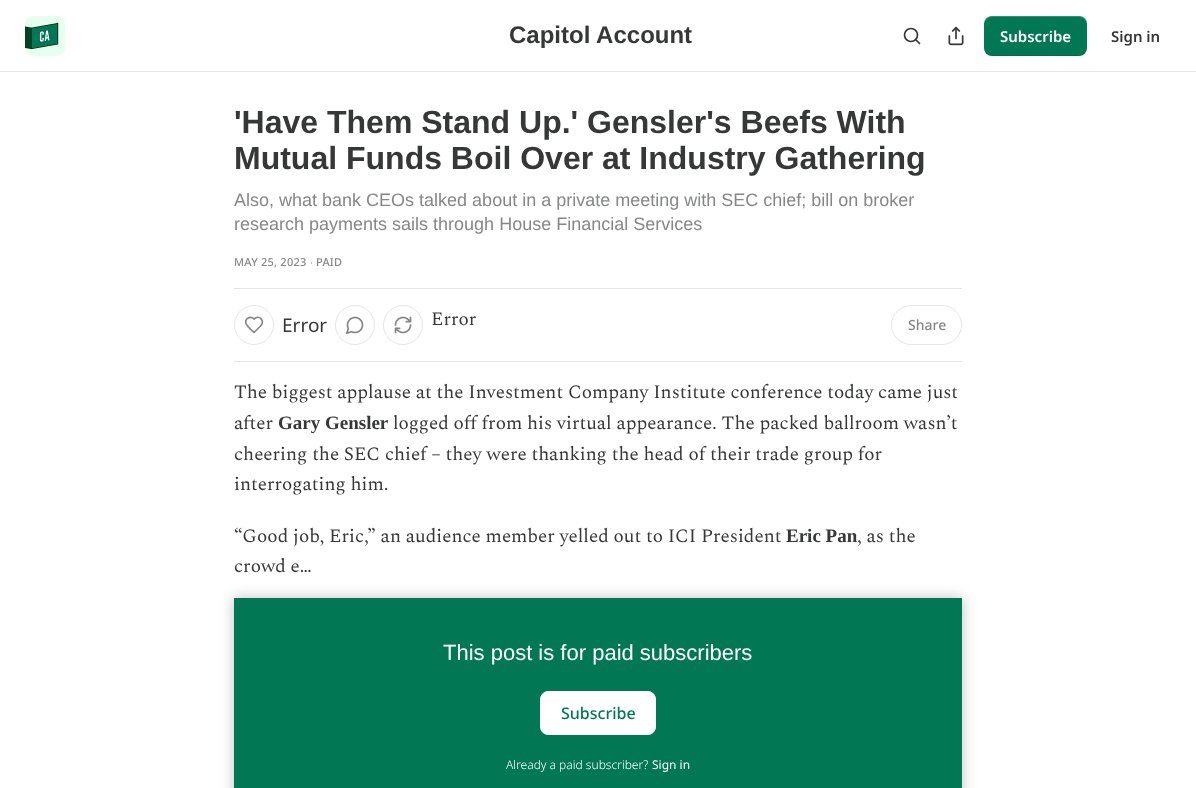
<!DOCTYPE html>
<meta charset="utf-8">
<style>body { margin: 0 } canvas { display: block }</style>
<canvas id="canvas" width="1196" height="788"></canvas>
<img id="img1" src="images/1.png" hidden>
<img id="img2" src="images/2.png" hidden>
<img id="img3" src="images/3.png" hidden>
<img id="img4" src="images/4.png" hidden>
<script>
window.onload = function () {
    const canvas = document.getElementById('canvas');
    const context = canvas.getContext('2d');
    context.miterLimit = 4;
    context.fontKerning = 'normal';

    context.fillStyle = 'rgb(255, 255, 255)';
    context.fillRect(0, 0, 1196, 788);
    context.fillStyle = 'rgb(230, 230, 230)';
    context.fillRect(0, 71, 1196, 1);
    context.drawImage(document.getElementById('img1'), 25, 16, 40, 40);
    context.beginPath();
    context.arc(911, 35, 6.5, 0, 2 * Math.PI);
    context.strokeStyle = 'rgb(54, 55, 55)';
    context.lineWidth = 1.7;
    context.stroke();
    context.beginPath();
    context.moveTo(919.5, 43.5);
    context.lineTo(916, 40);
    context.lineCap = 'round';
    context.lineJoin = 'round';
    context.stroke();
    context.drawImage(document.getElementById('img2'), 948, 26, 16, 20);
    context.fillStyle = 'rgb(1, 119, 84)';
    context.beginPath();
    context.roundRect(984, 16, 103, 40, 8);
    context.fill();
    context.fillStyle = 'rgba(0, 0, 0, 0.1)';
    context.beginPath();
    context.moveTo(984, 47);
    context.bezierCurveTo(984, 59, 998, 56, 1006, 56);
    context.lineTo(1064, 56);
    context.bezierCurveTo(1073, 56, 1087, 59, 1087, 47);
    context.bezierCurveTo(1087, 51, 1083, 55, 1079, 55);
    context.lineTo(992, 55);
    context.bezierCurveTo(988, 55, 984, 51, 984, 47);
    context.closePath();
    context.fill();
    context.fillStyle = 'rgba(255, 255, 255, 0.2)';
    context.beginPath();
    context.moveTo(992, 17);
    context.lineTo(1079, 17);
    context.bezierCurveTo(1083, 17, 1087, 21, 1087, 25);
    context.bezierCurveTo(1087, 13, 1073, 16, 1064, 16);
    context.lineTo(1006, 16);
    context.bezierCurveTo(998, 16, 984, 13, 984, 25);
    context.bezierCurveTo(984, 21, 988, 17, 992, 17);
    context.closePath();
    context.fill();
    context.fillStyle = 'rgb(230, 230, 230)';
    context.fillRect(234, 288, 728, 1);
    context.fillRect(234, 361, 728, 1);
    context.beginPath();
    context.arc(254, 325, 19.5, 0, 2 * Math.PI);
    context.strokeStyle = 'rgb(230, 230, 230)';
    context.lineWidth = 1;
    context.stroke();
    context.beginPath();
    context.moveTo(260, 326.5);
    context.bezierCurveTo(266, 320.5, 259, 314.5, 254, 319);
    context.bezierCurveTo(250.5, 315.5, 244.5, 318.5, 246, 323.5);
    context.bezierCurveTo(247, 326.5, 252, 330.5, 254, 332.5);
    context.closePath();
    context.strokeStyle = 'rgb(134, 135, 135)';
    context.lineWidth = 1.7;
    context.stroke();
    context.beginPath();
    context.arc(355, 325, 19.5, 0, 2 * Math.PI);
    context.strokeStyle = 'rgb(230, 230, 230)';
    context.lineWidth = 1;
    context.stroke();
    context.drawImage(document.getElementById('img3'), 345, 316, 19, 19);
    context.beginPath();
    context.arc(403, 325, 19.5, 0, 2 * Math.PI);
    context.stroke();
    context.drawImage(document.getElementById('img4'), 394, 316, 18, 18);
    context.beginPath();
    context.roundRect(891.5, 305.5, 70, 39, 19.5);
    context.lineJoin = 'miter';
    context.stroke();
    context.fillStyle = 'rgb(1, 119, 84)';
    context.fillRect(234, 598, 728, 190);
    context.fillStyle = 'rgb(255, 255, 255)';
    context.beginPath();
    context.roundRect(540.5, 691.5, 115, 43, 7.5);
    context.fill();
    context.strokeStyle = 'rgb(255, 255, 255)';
    context.stroke();
    context.save();
    context.beginPath();
    context.moveTo(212, 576);
    context.lineTo(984, 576);
    context.lineTo(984, 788);
    context.lineTo(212, 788);
    context.closePath();
    context.moveTo(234, 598);
    context.lineTo(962, 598);
    context.lineTo(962, 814);
    context.lineTo(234, 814);
    context.closePath();
    context.clip('evenodd');
    context.fillStyle = 'rgba(0, 0, 0, 0.25)';
    context.filter = 'blur(7px)';
    context.beginPath();
    context.rect(234, 598, 728, 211);
    context.fill();
    context.filter = 'none';
    context.restore();
    context.font = 'bold 24px Liberation Sans';
    context.fillStyle = 'rgb(54, 55, 55)';
    context.fillText('Capitol Account', 509, 43);
    context.font = '600 15px Noto Sans';
    context.fillStyle = 'rgb(255, 255, 255)';
    context.fillText('Subscribe', 1000, 42);
    context.fillStyle = 'rgb(54, 55, 55)';
    context.fillText('Sign in', 1111, 42);
    context.font = 'bold 32px Liberation Sans';
    context.fillText('\'Have Them Stand Up.\' Gensler\'s Beefs With', 234, 133);
    context.fillText('Mutual Funds Boil Over at Industry Gathering', 234, 169);
    context.font = '18px Liberation Sans';
    context.fillStyle = 'rgb(134, 135, 135)';
    context.fillText('Also, what bank CEOs talked about in a private meeting with SEC chief; bill on broker', 234, 206);
    context.fillText('research payments sails through House Financial Services', 234, 230);
    context.letterSpacing = '0.25px';
    context.font = '500 11px Noto Sans';
    context.fillText('MAY 25, 2023', 234, 266);
    context.font = '11px Liberation Sans';
    context.fillText('∙', 310, 266);
    context.font = '500 11px Noto Sans';
    context.fillText('PAID', 316, 266);
    context.letterSpacing = '0px';
    context.font = '19px Noto Sans';
    context.fillStyle = 'rgb(54, 55, 55)';
    context.fillText('Error', 282, 332);
    context.font = '19px Spectral';
    context.fillText('Error', 431, 325);
    context.font = '500 14px Noto Sans';
    context.fillStyle = 'rgb(134, 135, 135)';
    context.fillText('Share', 908, 330);
    context.font = '19px Spectral';
    context.fillStyle = 'rgb(54, 55, 55)';
    context.fillText('The biggest applause at the Investment Company Institute conference today came just', 234, 398);
    context.fillText('after', 234, 429);
    context.font = 'bold 19px Liberation Serif';
    context.fillText('Gary Gensler', 278, 429);
    context.font = '19px Spectral';
    context.fillText('logged off from his virtual appearance. The packed ballroom wasn’t', 393, 429);
    context.fillText('cheering the SEC chief – they were thanking the head of their trade group for', 234, 460);
    context.fillText('interrogating him.', 234, 490);
    context.fillText('“Good job, Eric,” an audience member yelled out to ICI President', 234, 542);
    context.font = 'bold 19px Liberation Serif';
    context.fillText('Eric Pan', 786, 542);
    context.font = '19px Spectral';
    context.fillText(', as the', 857, 542);
    context.fillText('crowd e…', 234, 572);
    context.font = '22px Liberation Sans';
    context.fillStyle = 'rgb(255, 255, 255)';
    context.fillText('This post is for paid subscribers', 443, 660);
    context.font = '500 16px Noto Sans';
    context.fillStyle = 'rgb(1, 119, 84)';
    context.fillText('Subscribe', 561, 719);
    context.font = '300 12px Noto Sans';
    context.fillStyle = 'rgb(255, 255, 255)';
    context.fillText('Already a paid subscriber?', 506, 769);
    context.font = '12px Noto Sans';
    context.fillText('Sign in', 652, 769);
};
</script>
